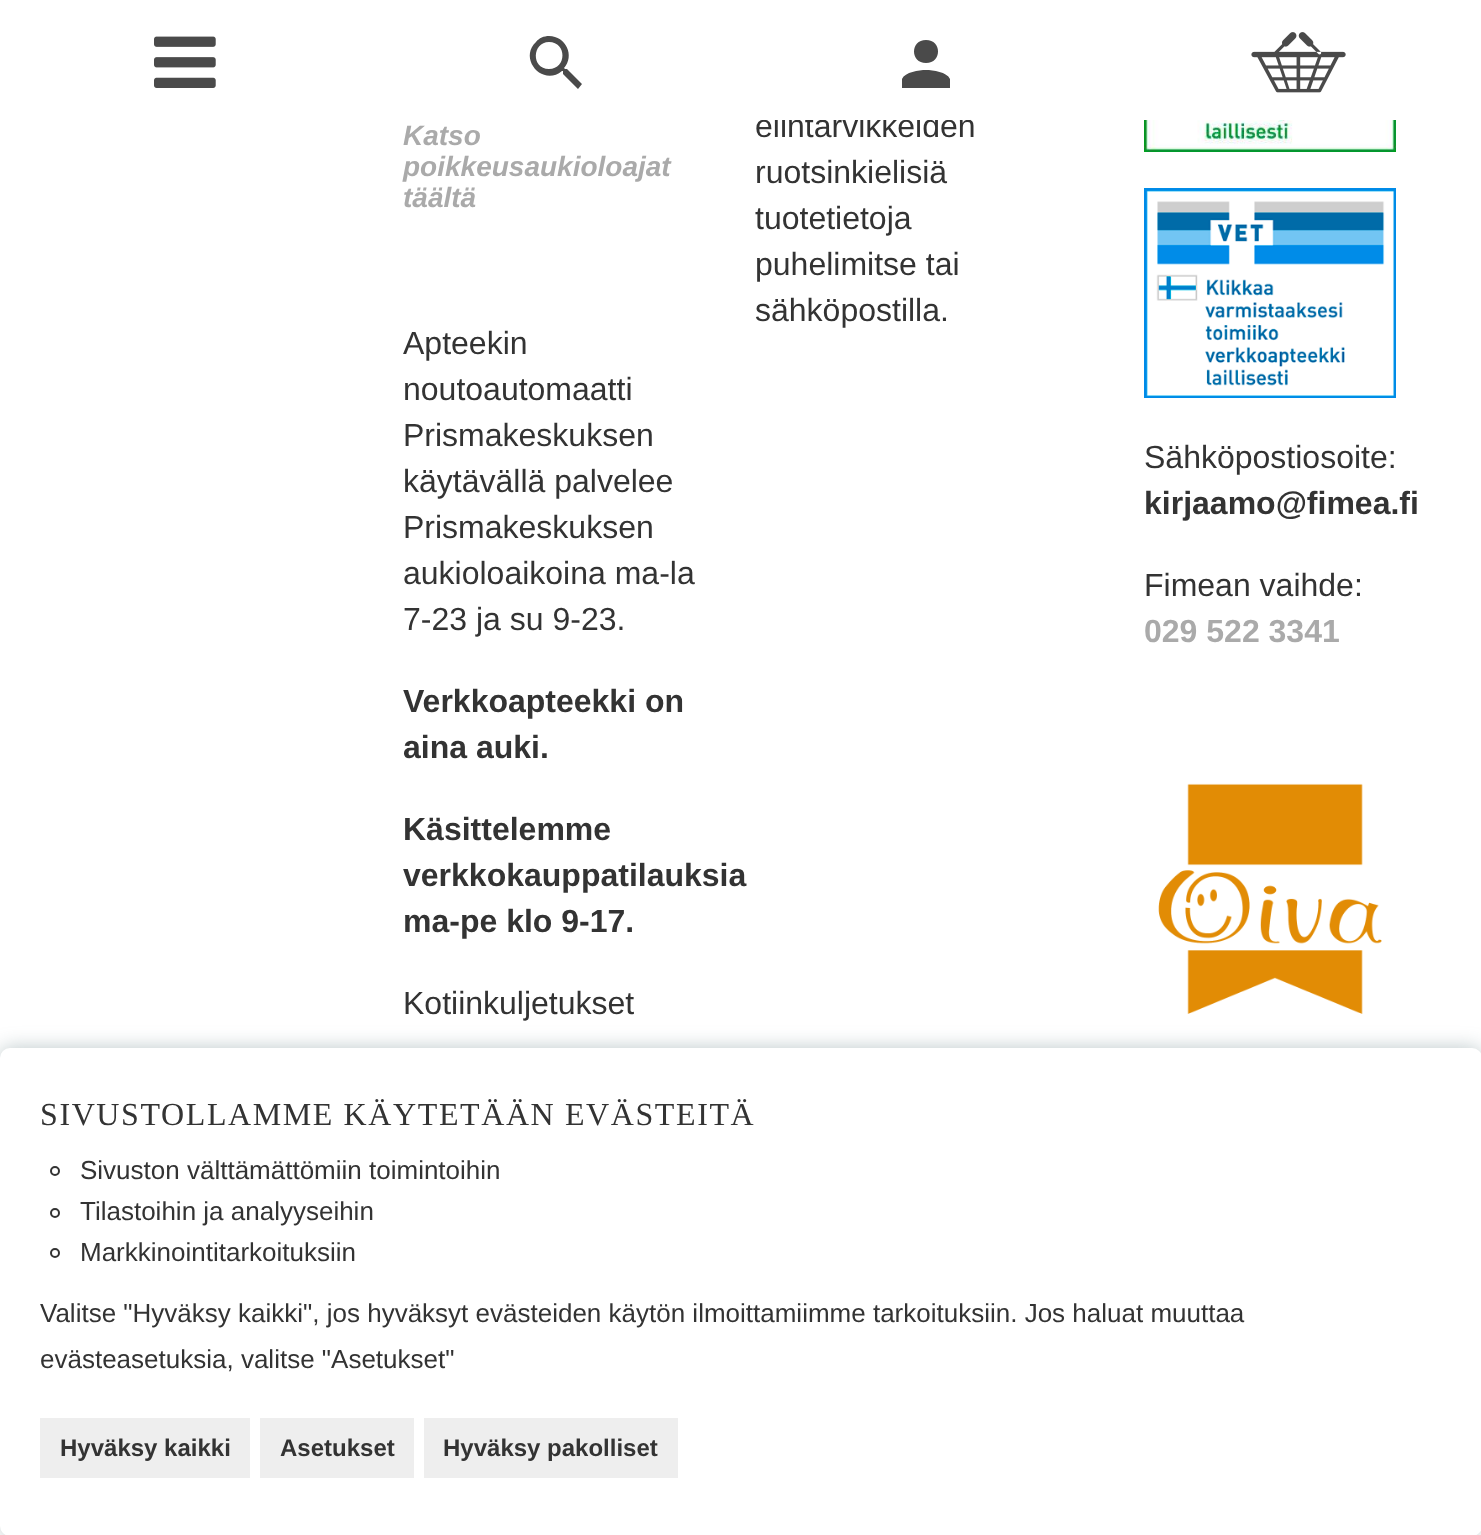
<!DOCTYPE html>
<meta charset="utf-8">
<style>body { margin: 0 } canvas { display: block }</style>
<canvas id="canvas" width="1481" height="1535"></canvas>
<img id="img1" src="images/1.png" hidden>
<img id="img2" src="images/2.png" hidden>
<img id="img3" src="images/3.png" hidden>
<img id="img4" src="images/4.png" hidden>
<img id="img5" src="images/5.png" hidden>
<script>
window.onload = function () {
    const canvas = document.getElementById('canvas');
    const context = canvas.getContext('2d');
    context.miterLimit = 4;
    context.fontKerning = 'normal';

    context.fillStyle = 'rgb(255, 255, 255)';
    context.fillRect(0, 0, 1481, 1535);
    context.drawImage(document.getElementById('img1'), 154, 36, 62, 52);
    context.fillStyle = 'rgb(74, 74, 74)';
    context.beginPath();
    context.moveTo(549, 36);
    context.bezierCurveTo(544, 36, 539, 38, 536, 42);
    context.bezierCurveTo(518, 59, 543, 87, 562, 71);
    context.lineTo(563, 71);
    context.lineTo(563, 74);
    context.lineTo(578, 89);
    context.lineTo(582, 84);
    context.lineTo(567, 69);
    context.lineTo(565, 69);
    context.lineTo(564, 68);
    context.bezierCurveTo(575, 56, 566, 36, 549, 36);
    context.closePath();
    context.moveTo(549, 69);
    context.bezierCurveTo(531, 69, 532, 42, 549, 42);
    context.bezierCurveTo(567, 42, 567, 69, 549, 69);
    context.closePath();
    context.fill();
    context.beginPath();
    context.moveTo(926, 40);
    context.bezierCurveTo(910, 40, 910, 63, 926, 63);
    context.bezierCurveTo(942, 63, 942, 40, 926, 40);
    context.closePath();
    context.moveTo(926, 70);
    context.bezierCurveTo(919, 70, 905, 72, 902, 79);
    context.lineTo(902, 88);
    context.lineTo(950, 88);
    context.lineTo(950, 79);
    context.bezierCurveTo(947, 72, 933, 70, 926, 70);
    context.closePath();
    context.fill();
    context.drawImage(document.getElementById('img2'), 1251, 32, 95, 61);
    context.drawImage(document.getElementById('img3'), 1144, 120, 252, 32);
    context.drawImage(document.getElementById('img4'), 1144, 188, 252, 210);
    context.drawImage(document.getElementById('img5'), 1158, 783, 224, 231);
    context.fillStyle = 'rgba(84, 116, 120, 0.4)';
    context.filter = 'blur(10px)';
    context.beginPath();
    context.roundRect(0, 1048, 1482, 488, 10);
    context.fill();
    context.filter = 'none';
    context.fillStyle = 'rgb(255, 255, 255)';
    context.beginPath();
    context.roundRect(0, 1048, 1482, 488, 10);
    context.fill();
    context.beginPath();
    context.arc(55, 1171, 4, 0, 2 * Math.PI);
    context.strokeStyle = 'rgb(51, 51, 51)';
    context.lineWidth = 2;
    context.stroke();
    context.beginPath();
    context.arc(55, 1213, 4, 0, 2 * Math.PI);
    context.stroke();
    context.beginPath();
    context.arc(55, 1253, 4, 0, 2 * Math.PI);
    context.stroke();
    context.fillStyle = 'rgb(238, 238, 238)';
    context.fillRect(40, 1418, 210, 60);
    context.fillRect(260, 1418, 154, 60);
    context.fillRect(424, 1418, 254, 60);
    context.font = 'italic bold 28px Liberation Sans';
    context.fillStyle = 'rgb(170, 170, 170)';
    context.fillText('Katso', 403, 145);
    context.fillText('poikkeusaukioloajat', 403, 176);
    context.fillText('täältä', 403, 207);
    context.font = '32px Liberation Sans';
    context.fillStyle = 'rgb(51, 51, 51)';
    context.fillText('Apteekin', 403, 354);
    context.fillText('noutoautomaatti', 403, 400);
    context.fillText('Prismakeskuksen', 403, 446);
    context.fillText('käytävällä palvelee', 403, 492);
    context.fillText('Prismakeskuksen', 403, 538);
    context.fillText('aukioloaikoina ma-la', 403, 584);
    context.fillText('7-23 ja su 9-23.', 403, 630);
    context.font = 'bold 32px Liberation Sans';
    context.fillText('Verkkoapteekki on', 403, 712);
    context.fillText('aina auki.', 403, 758);
    context.fillText('Käsittelemme', 403, 840);
    context.fillText('verkkokauppatilauksia', 403, 886);
    context.fillText('ma-pe klo 9-17.', 403, 932);
    context.font = '32px Liberation Sans';
    context.fillText('Kotiinkuljetukset', 403, 1014);
    context.fillText('elintarvikkeiden', 755, 137);
    context.fillStyle = 'rgb(255, 255, 255)';
    context.fillRect(762, 113, 208, 7);
    context.fillStyle = 'rgb(51, 51, 51)';
    context.fillText('ruotsinkielisiä', 755, 183);
    context.fillText('tuotetietoja', 755, 229);
    context.fillText('puhelimitse tai', 755, 275);
    context.fillText('sähköpostilla.', 755, 321);
    context.fillText('Sähköpostiosoite:', 1144, 468);
    context.font = 'bold 32px Liberation Sans';
    context.fillText('kirjaamo@fimea.fi', 1144, 514);
    context.font = '32px Liberation Sans';
    context.fillText('Fimean vaihde:', 1144, 596);
    context.font = 'bold 32px Liberation Sans';
    context.fillStyle = 'rgb(170, 170, 170)';
    context.fillText('029 522 3341', 1144, 642);
    context.letterSpacing = '1.6px';
    context.font = '32px Liberation Serif';
    context.fillStyle = 'rgb(51, 51, 51)';
    context.fillText('SIVUSTOLLAMME KÄYTETÄÄN EVÄSTEITÄ', 40, 1125);
    context.letterSpacing = '0px';
    context.font = '26px Liberation Sans';
    context.fillText('Sivuston välttämättömiin toimintoihin', 80, 1179);
    context.fillText('Tilastoihin ja analyyseihin', 80, 1220);
    context.fillText('Markkinointitarkoituksiin', 80, 1261);
    context.fillText('Valitse "Hyväksy kaikki", jos hyväksyt evästeiden käytön ilmoittamiimme tarkoituksiin. Jos haluat muuttaa', 40, 1322);
    context.fillText('evästeasetuksia, valitse "Asetukset"', 40, 1368);
    context.font = 'bold 24px Liberation Sans';
    context.fillText('Hyväksy kaikki', 60, 1456);
    context.fillText('Asetukset', 280, 1456);
    context.fillText('Hyväksy pakolliset', 443, 1456);
};
</script>
